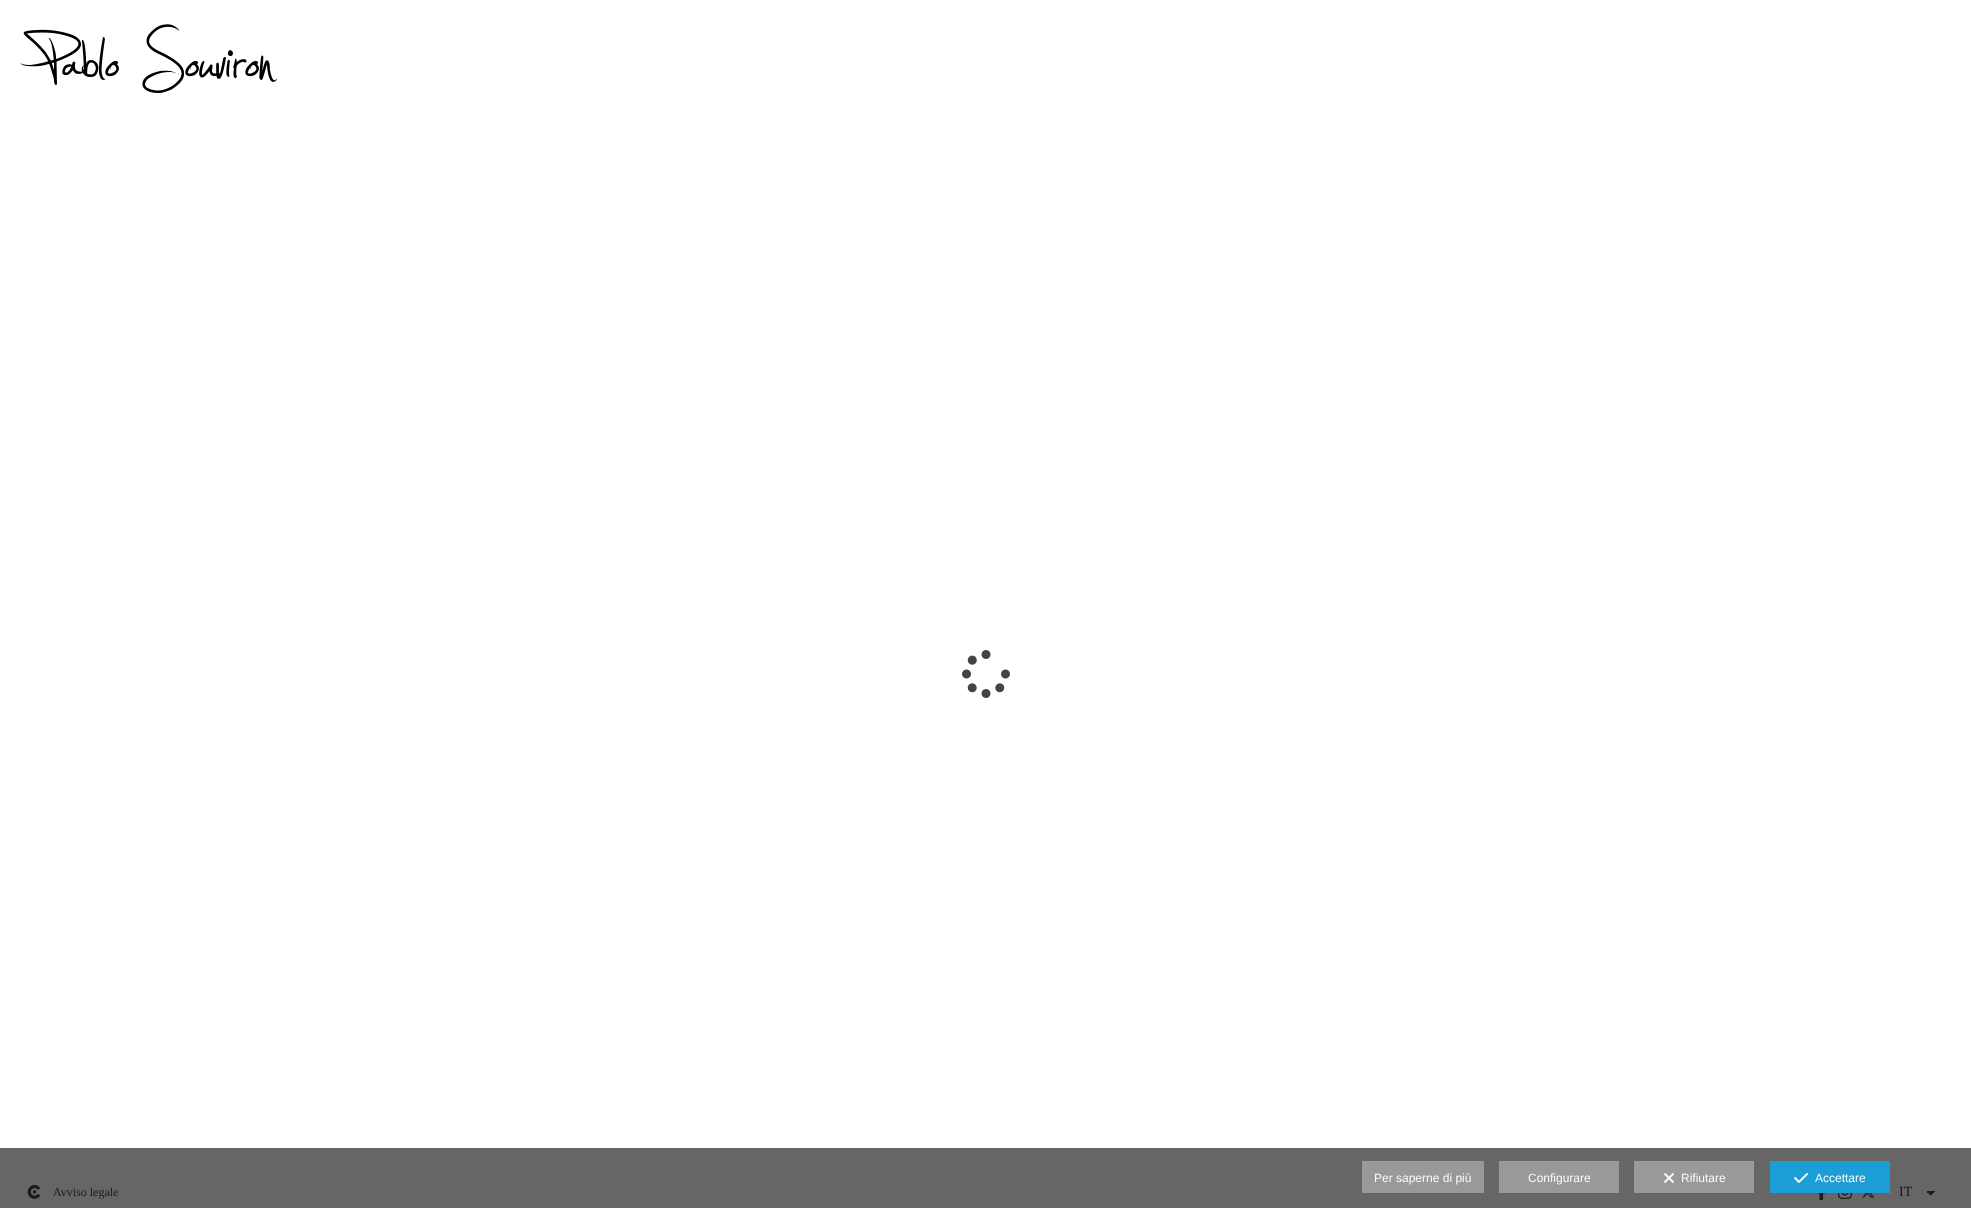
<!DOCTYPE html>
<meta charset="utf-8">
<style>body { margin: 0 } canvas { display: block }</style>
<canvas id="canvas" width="1971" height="1208"></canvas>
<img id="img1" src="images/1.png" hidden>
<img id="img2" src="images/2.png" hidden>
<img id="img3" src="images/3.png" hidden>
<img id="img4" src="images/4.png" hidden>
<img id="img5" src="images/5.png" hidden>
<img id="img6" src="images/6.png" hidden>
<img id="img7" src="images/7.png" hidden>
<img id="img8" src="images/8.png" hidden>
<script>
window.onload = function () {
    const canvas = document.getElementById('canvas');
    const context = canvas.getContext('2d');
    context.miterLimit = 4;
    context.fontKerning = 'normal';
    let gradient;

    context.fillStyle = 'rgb(255, 255, 255)';
    context.fillRect(0, 0, 1971, 1208);
    context.fillStyle = 'rgb(102, 102, 102)';
    context.fillRect(0, 1148, 1971, 60);
    context.fillStyle = 'rgb(153, 153, 153)';
    context.fillRect(1362, 1161, 122, 32);
    context.fillRect(1499, 1161, 120, 32);
    context.fillRect(1634, 1161, 120, 32);
    context.drawImage(document.getElementById('img1'), 1664, 1173, 10, 10);
    context.fillStyle = 'rgb(26, 158, 213)';
    context.fillRect(1770, 1161, 120, 32);
    context.drawImage(document.getElementById('img2'), 1794, 1173, 14, 10);
    context.drawImage(document.getElementById('img3'), 20, 24, 258, 69);
    context.drawImage(document.getElementById('img4'), 962, 650, 48, 48);
    context.drawImage(document.getElementById('img5'), 27, 1184, 14, 15);
    context.drawImage(document.getElementById('img6'), 1817, 1193, 9, 7);
    context.drawImage(document.getElementById('img7'), 1838, 1193, 14, 6);
    context.drawImage(document.getElementById('img8'), 1862, 1193, 13, 5);
    gradient = context.createLinearGradient(1931, 1191, 1936, 1196);
    gradient.addColorStop(0.5, 'rgb(27, 27, 27)');
    gradient.addColorStop(0.5, 'rgb(102, 102, 102)');
    context.fillStyle = gradient;
    context.fillRect(1931, 1191, 5, 4);
    gradient = context.createLinearGradient(1926, 1196, 1931, 1191);
    gradient.addColorStop(0.5, 'rgb(102, 102, 102)');
    gradient.addColorStop(0.5, 'rgb(27, 27, 27)');
    context.fillStyle = gradient;
    context.fillRect(1926, 1191, 5, 4);
    context.font = '12px Liberation Sans';
    context.fillStyle = 'rgb(249, 249, 249)';
    context.fillText('Per saperne di più', 1374, 1182);
    context.fillText('Configurare', 1528, 1182);
    context.fillText('Rifiutare', 1681, 1182);
    context.fillText('Accettare', 1815, 1182);
    context.font = '12px Liberation Serif';
    context.fillStyle = 'rgb(27, 27, 27)';
    context.fillText('Avviso legale', 53, 1196);
    context.font = '14px Liberation Serif';
    context.fillText('IT', 1899, 1196);
};
</script>
